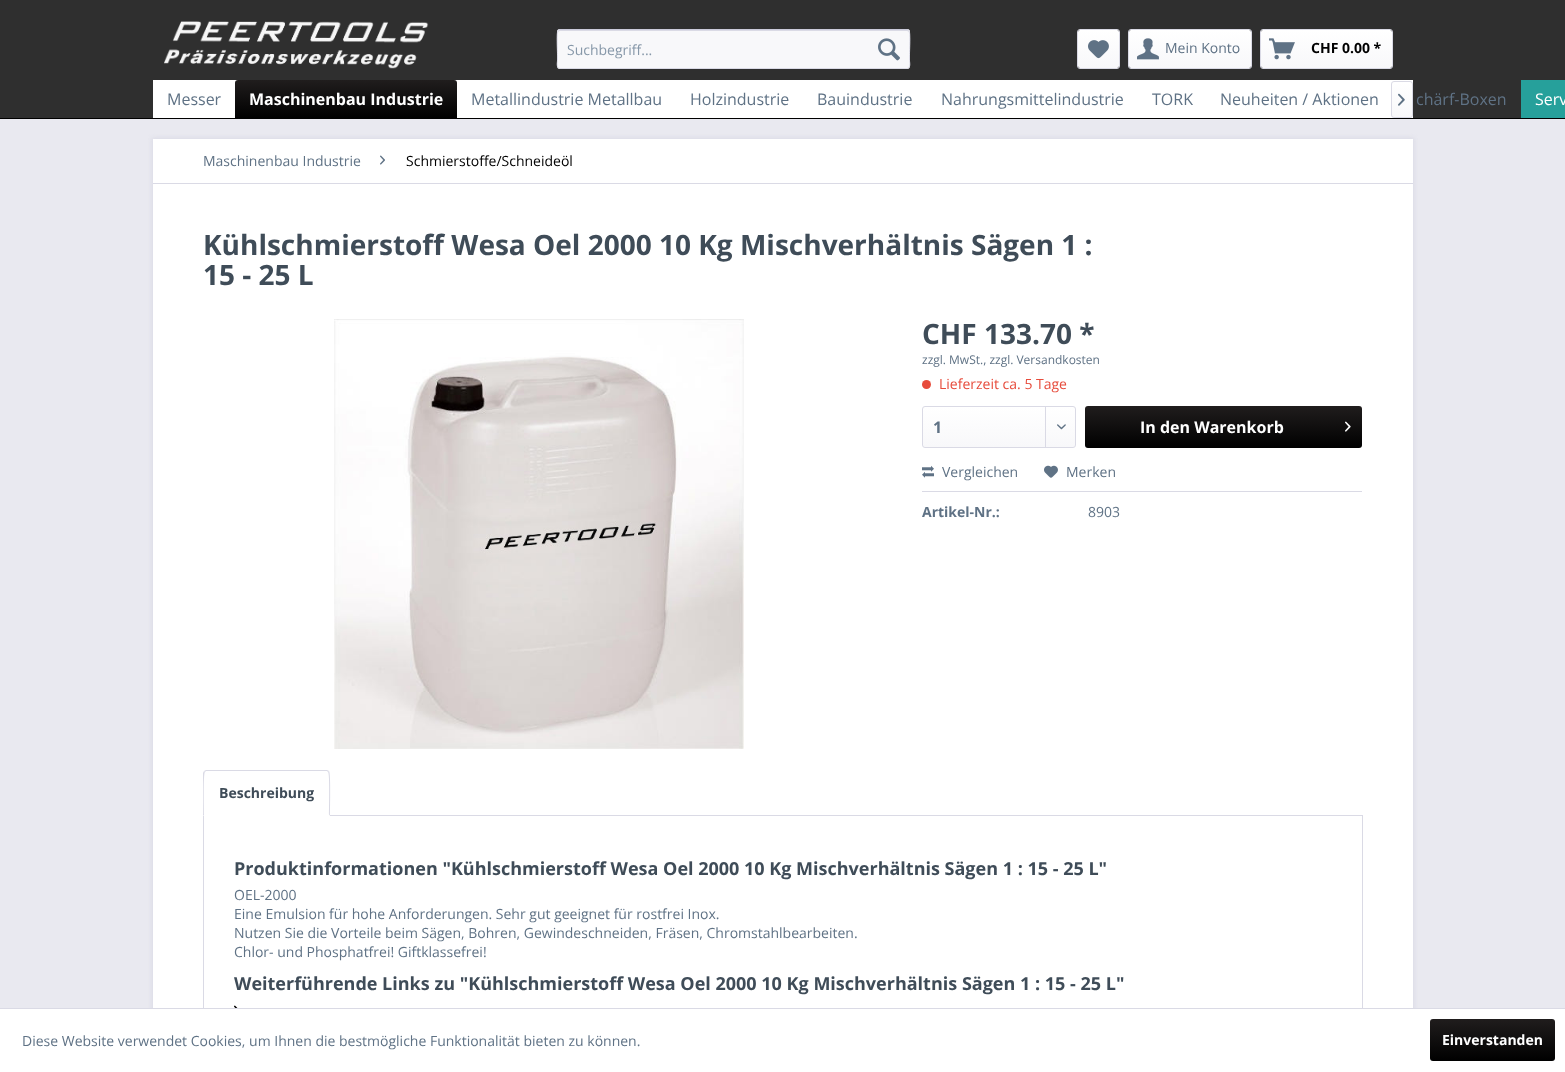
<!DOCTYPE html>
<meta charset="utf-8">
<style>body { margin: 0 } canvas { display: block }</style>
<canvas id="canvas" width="1565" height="1072"></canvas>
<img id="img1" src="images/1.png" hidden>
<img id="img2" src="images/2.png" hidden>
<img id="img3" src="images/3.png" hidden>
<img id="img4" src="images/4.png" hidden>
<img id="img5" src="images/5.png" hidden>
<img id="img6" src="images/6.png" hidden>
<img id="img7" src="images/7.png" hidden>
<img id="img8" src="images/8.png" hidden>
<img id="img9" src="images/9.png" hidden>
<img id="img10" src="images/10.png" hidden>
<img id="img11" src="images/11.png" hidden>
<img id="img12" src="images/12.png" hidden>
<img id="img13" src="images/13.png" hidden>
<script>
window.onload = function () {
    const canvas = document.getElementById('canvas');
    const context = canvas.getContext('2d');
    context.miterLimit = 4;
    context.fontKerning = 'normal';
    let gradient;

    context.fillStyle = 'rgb(233, 233, 240)';
    context.fillRect(0, 0, 1565, 1072);
    context.fillStyle = 'rgb(47, 47, 47)';
    context.fillRect(0, 0, 1565, 80);
    context.drawImage(document.getElementById('img1'), 164, 21, 265, 48);
    context.fillStyle = 'rgb(248, 248, 250)';
    context.beginPath();
    context.roundRect(557, 29, 353, 40, 3);
    context.fill();
    context.fillStyle = 'rgb(218, 218, 229)';
    context.beginPath();
    context.moveTo(560, 31);
    context.lineTo(907, 31);
    context.bezierCurveTo(908, 31, 909, 32, 909, 33);
    context.bezierCurveTo(909, 32, 909, 30, 907, 30);
    context.lineTo(560, 30);
    context.bezierCurveTo(558, 30, 558, 32, 558, 33);
    context.bezierCurveTo(558, 32, 559, 31, 560, 31);
    context.closePath();
    context.fill();
    context.beginPath();
    context.moveTo(558, 30);
    context.lineTo(560, 29.5);
    context.lineTo(907, 29.5);
    context.lineTo(909, 30);
    context.strokeStyle = 'rgb(203, 203, 219)';
    context.stroke();
    context.beginPath();
    context.moveTo(909, 30);
    context.bezierCurveTo(910.5, 32, 909.5, 51, 909.5, 54.5);
    context.lineTo(909.5, 60.5);
    context.bezierCurveTo(909.5, 62, 911, 68.5, 907, 68.5);
    context.lineTo(560, 68.5);
    context.bezierCurveTo(556, 68.5, 557.5, 62, 557.5, 60.5);
    context.lineTo(557.5, 54.5);
    context.bezierCurveTo(557.5, 51, 556.5, 32, 558, 30);
    context.strokeStyle = 'rgb(218, 218, 229)';
    context.stroke();
    context.drawImage(document.getElementById('img2'), 878, 38, 22, 23);
    gradient = context.createLinearGradient(1099, 30, 1099, 68);
    gradient.addColorStop(0, 'rgb(255, 255, 255)');
    gradient.addColorStop(1, 'rgb(248, 248, 250)');
    context.fillStyle = gradient;
    context.beginPath();
    context.roundRect(1078, 30, 41, 38, 2);
    context.fill();
    context.beginPath();
    context.roundRect(1077.5, 29.5, 42, 39, 2.5);
    context.stroke();
    context.drawImage(document.getElementById('img3'), 1088, 40, 21, 19);
    gradient = context.createLinearGradient(1190, 30, 1190, 68);
    gradient.addColorStop(0, 'rgb(255, 255, 255)');
    gradient.addColorStop(1, 'rgb(248, 248, 250)');
    context.fillStyle = gradient;
    context.beginPath();
    context.roundRect(1129, 30, 122, 38, 2);
    context.fill();
    context.beginPath();
    context.roundRect(1128.5, 29.5, 123, 39, 2.5);
    context.stroke();
    context.drawImage(document.getElementById('img4'), 1137, 38, 22, 22);
    gradient = context.createLinearGradient(1327, 30, 1327, 68);
    gradient.addColorStop(0, 'rgb(255, 255, 255)');
    gradient.addColorStop(1, 'rgb(248, 248, 250)');
    context.fillStyle = gradient;
    context.beginPath();
    context.roundRect(1261, 30, 131, 38, 2);
    context.fill();
    context.beginPath();
    context.roundRect(1260.5, 29.5, 132, 39, 2.5);
    context.stroke();
    context.drawImage(document.getElementById('img5'), 1269, 38, 26, 22);
    context.fillStyle = 'rgb(47, 47, 47)';
    context.fillRect(0, 80, 1521, 38);
    context.fillStyle = 'rgb(0, 0, 0)';
    context.fillRect(0, 118, 1565, 1);
    context.fillStyle = 'rgb(255, 255, 255)';
    context.fillRect(153, 80, 1260, 38);
    gradient = context.createLinearGradient(1402, 82, 1402, 117);
    gradient.addColorStop(0, 'rgb(255, 255, 255)');
    gradient.addColorStop(1, 'rgb(248, 248, 250)');
    context.fillStyle = gradient;
    context.beginPath();
    context.roundRect(1392, 82, 20, 35, 2);
    context.fill();
    context.beginPath();
    context.roundRect(1391.5, 81.5, 21, 36, 2.5);
    context.stroke();
    context.drawImage(document.getElementById('img6'), 1398, 93, 7, 13);
    gradient = context.createLinearGradient(346, 80, 346, 118);
    gradient.addColorStop(0, 'rgb(32, 29, 29)');
    gradient.addColorStop(1, 'rgb(0, 0, 0)');
    context.fillStyle = gradient;
    context.beginPath();
    context.roundRect(235, 80, 222, 38, [3, 3, 0, 0]);
    context.fill();
    context.fillStyle = 'rgb(38, 160, 155)';
    context.fillRect(1521, 80, 44, 38);
    context.fillStyle = 'rgb(218, 218, 229)';
    context.filter = 'blur(2px)';
    context.beginPath();
    context.rect(152, 138, 1262, 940);
    context.fill();
    context.filter = 'none';
    context.fillStyle = 'rgb(255, 255, 255)';
    context.fillRect(153, 139, 1260, 869);
    context.fillStyle = 'rgb(218, 218, 229)';
    context.fillRect(153, 183, 1260, 1);
    context.drawImage(document.getElementById('img7'), 380, 155, 5, 10);
    context.drawImage(document.getElementById('img8'), 334, 319, 410, 430);
    context.fillStyle = 'rgb(231, 76, 60)';
    context.beginPath();
    context.arc(926.5, 384.5, 4.5, 0, 2 * Math.PI);
    context.fill();
    gradient = context.createLinearGradient(999, 407, 999, 447);
    gradient.addColorStop(0, 'rgb(255, 255, 255)');
    gradient.addColorStop(1, 'rgb(248, 248, 250)');
    context.fillStyle = gradient;
    context.beginPath();
    context.roundRect(923, 407, 152, 40, 2);
    context.fill();
    context.beginPath();
    context.roundRect(922.5, 406.5, 153, 41, 2.5);
    context.stroke();
    context.fillStyle = 'rgb(218, 218, 229)';
    context.fillRect(1045, 407, 1, 40);
    context.drawImage(document.getElementById('img9'), 1057, 424, 9, 6);
    gradient = context.createLinearGradient(1224, 406, 1224, 448);
    gradient.addColorStop(0, 'rgb(32, 29, 29)');
    gradient.addColorStop(1, 'rgb(0, 0, 0)');
    context.fillStyle = gradient;
    context.beginPath();
    context.roundRect(1085, 406, 277, 42, 3);
    context.fill();
    context.drawImage(document.getElementById('img10'), 1345, 421, 6, 11);
    context.fillStyle = 'rgb(218, 218, 229)';
    context.fillRect(922, 491, 440, 1);
    context.drawImage(document.getElementById('img11'), 922, 465, 12, 13);
    context.drawImage(document.getElementById('img12'), 1044, 465, 14, 13);
    context.strokeRect(203.5, 815.5, 1159, 234);
    context.fillStyle = 'rgb(255, 255, 255)';
    context.beginPath();
    context.roundRect(203, 770, 127, 46, [3, 3, 0, 0]);
    context.fill();
    context.fillStyle = 'rgb(218, 218, 229)';
    context.beginPath();
    context.moveTo(206, 770);
    context.lineTo(204, 771);
    context.lineTo(205, 772);
    context.lineTo(206, 771);
    context.lineTo(327, 771);
    context.lineTo(328, 772);
    context.lineTo(329, 771);
    context.lineTo(327, 770);
    context.closePath();
    context.fill();
    context.beginPath();
    context.moveTo(330, 816);
    context.bezierCurveTo(330, 811, 331, 773, 329, 771);
    context.lineTo(328, 772);
    context.bezierCurveTo(330, 773, 329, 810, 329, 815);
    context.closePath();
    context.fill();
    context.fillStyle = 'rgb(255, 255, 255)';
    context.beginPath();
    context.moveTo(330, 816);
    context.lineTo(329, 815);
    context.lineTo(204, 815);
    context.lineTo(203, 816);
    context.closePath();
    context.fill();
    context.fillStyle = 'rgb(218, 218, 229)';
    context.beginPath();
    context.moveTo(203, 816);
    context.lineTo(204, 815);
    context.bezierCurveTo(204, 810, 203, 773, 205, 772);
    context.lineTo(204, 771);
    context.lineTo(203, 773);
    context.closePath();
    context.fill();
    context.drawImage(document.getElementById('img13'), 234, 1005, 4, 3);
    context.fillStyle = 'rgb(255, 255, 255)';
    context.fillRect(0, 1009, 1565, 63);
    context.fillStyle = 'rgb(218, 218, 229)';
    context.fillRect(0, 1008, 1565, 1);
    gradient = context.createLinearGradient(1493, 1019, 1493, 1061);
    gradient.addColorStop(0, 'rgb(32, 29, 29)');
    gradient.addColorStop(1, 'rgb(0, 0, 0)');
    context.fillStyle = gradient;
    context.beginPath();
    context.roundRect(1430, 1019, 125, 42, 3);
    context.fill();
    context.font = '14px Open Sans';
    context.fillStyle = 'rgb(135, 152, 169)';
    context.fillText('Suchbegriff...', 567, 55);
    context.fillStyle = 'rgb(95, 114, 133)';
    context.fillText('Mein Konto', 1165, 53);
    context.font = 'bold 14px Open Sans';
    context.fillStyle = 'rgb(0, 0, 0)';
    context.fillText('CHF 0.00 *', 1311, 53);
    context.font = '16px Open Sans';
    context.fillStyle = 'rgb(95, 114, 133)';
    context.fillText('Messer', 167, 105);
    context.font = 'bold 16px Open Sans';
    context.fillStyle = 'rgb(255, 255, 255)';
    context.fillText('Maschinenbau Industrie', 249, 105);
    context.font = '16px Open Sans';
    context.fillStyle = 'rgb(95, 114, 133)';
    context.fillText('Metallindustrie Metallbau', 471, 105);
    context.fillText('Holzindustrie', 690, 105);
    context.fillText('Bauindustrie', 817, 105);
    context.fillText('Nahrungsmittelindustrie', 941, 105);
    context.fillText('TORK', 1152, 105);
    context.fillText('Neuheiten / Aktionen', 1220, 105);
    context.fillText('chärf-Boxen', 1416, 105);
    context.fillStyle = 'rgb(255, 255, 255)';
    context.fillText('Serv', 1535, 105);
    context.font = '14px Open Sans';
    context.fillStyle = 'rgb(95, 114, 133)';
    context.fillText('Maschinenbau Industrie', 203, 166);
    context.fillStyle = 'rgb(0, 0, 0)';
    context.fillText('Schmierstoffe/Schneideöl', 406, 166);
    context.font = 'bold 28px Open Sans';
    context.fillStyle = 'rgb(63, 76, 88)';
    context.fillText('Kühlschmierstoff Wesa Oel 2000 10 Kg Mischverhältnis Sägen 1 :', 203, 255);
    context.fillText('15 - 25 L', 203, 285);
    context.fillText('CHF 133.70 *', 922, 344);
    context.font = '12px Open Sans';
    context.fillStyle = 'rgb(95, 114, 133)';
    context.fillText('zzgl. MwSt., zzgl. Versandkosten', 922, 364);
    context.font = '14px Open Sans';
    context.fillStyle = 'rgb(231, 76, 60)';
    context.fillText('Lieferzeit ca. 5 Tage', 939, 389);
    context.font = 'bold 16px Open Sans';
    context.fillStyle = 'rgb(95, 114, 133)';
    context.fillText('1', 933, 433);
    context.fillStyle = 'rgb(255, 255, 255)';
    context.fillText('In den Warenkorb', 1140, 433);
    context.font = '14px Open Sans';
    context.fillStyle = 'rgb(95, 114, 133)';
    context.fillText('Vergleichen', 942, 477);
    context.fillText('Merken', 1066, 477);
    context.font = 'bold 14px Open Sans';
    context.fillText('Artikel-Nr.:', 922, 517);
    context.font = '14px Open Sans';
    context.fillText('8903', 1088, 517);
    context.font = 'bold 14px Open Sans';
    context.fillStyle = 'rgb(63, 76, 88)';
    context.fillText('Beschreibung', 219, 798);
    context.font = 'bold 18px Open Sans';
    context.fillText('Produktinformationen "Kühlschmierstoff Wesa Oel 2000 10 Kg Mischverhältnis Sägen 1 : 15 - 25 L"', 234, 875);
    context.font = '14px Open Sans';
    context.fillStyle = 'rgb(95, 114, 133)';
    context.fillText('OEL-2000', 234, 900);
    context.fillText('Eine Emulsion für hohe Anforderungen. Sehr gut geeignet für rostfrei Inox.', 234, 919);
    context.fillText('Nutzen Sie die Vorteile beim Sägen, Bohren, Gewindeschneiden, Fräsen, Chromstahlbearbeiten.', 234, 938);
    context.fillText('Chlor- und Phosphatfrei! Giftklassefrei!', 234, 957);
    context.font = 'bold 18px Open Sans';
    context.fillStyle = 'rgb(63, 76, 88)';
    context.fillText('Weiterführende Links zu "Kühlschmierstoff Wesa Oel 2000 10 Kg Mischverhältnis Sägen 1 : 15 - 25 L"', 234, 990);
    context.font = '14px Open Sans';
    context.fillStyle = 'rgb(95, 114, 133)';
    context.fillText('Diese Website verwendet Cookies, um Ihnen die bestmögliche Funktionalität bieten zu können.', 22, 1046);
    context.font = 'bold 14px Open Sans';
    context.fillStyle = 'rgb(255, 255, 255)';
    context.fillText('Einverstanden', 1442, 1045);
};
</script>
